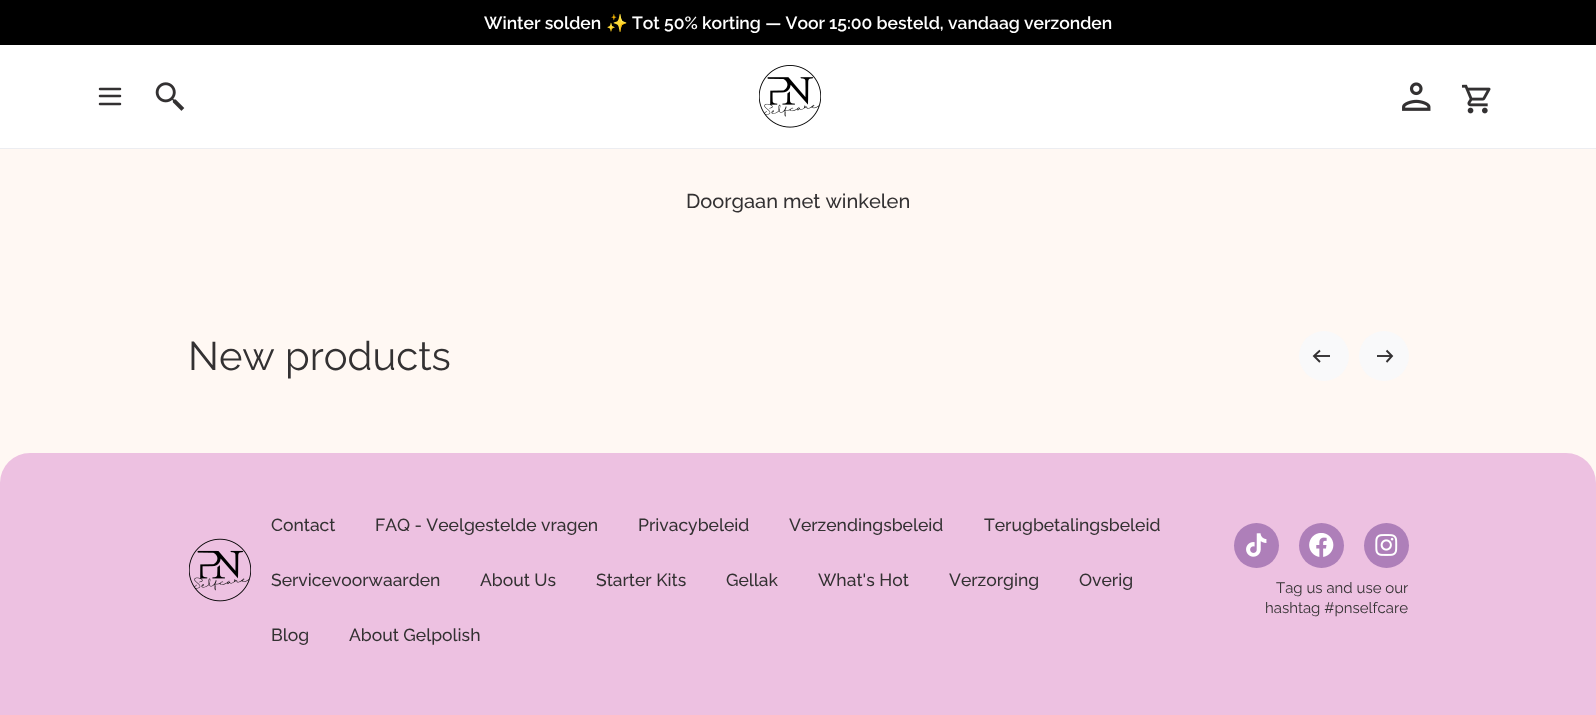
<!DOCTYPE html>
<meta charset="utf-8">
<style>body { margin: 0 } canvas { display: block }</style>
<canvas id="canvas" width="1596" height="715"></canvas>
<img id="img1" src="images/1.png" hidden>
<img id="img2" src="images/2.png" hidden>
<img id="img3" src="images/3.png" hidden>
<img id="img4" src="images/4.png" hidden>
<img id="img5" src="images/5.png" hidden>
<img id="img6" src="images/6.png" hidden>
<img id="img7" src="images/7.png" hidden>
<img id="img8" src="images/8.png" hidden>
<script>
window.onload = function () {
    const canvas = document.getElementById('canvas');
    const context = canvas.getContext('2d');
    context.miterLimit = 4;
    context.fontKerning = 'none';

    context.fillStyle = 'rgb(255, 248, 243)';
    context.fillRect(0, 0, 1596, 715);
    context.fillStyle = 'rgb(255, 255, 255)';
    context.fillRect(0, 45, 1596, 103);
    context.fillStyle = 'rgb(0, 0, 0)';
    context.fillRect(0, 0, 1596, 45);
    context.fillStyle = 'rgb(236, 237, 241)';
    context.fillRect(0, 148, 1596, 1);
    context.beginPath();
    context.moveTo(100, 89);
    context.lineTo(120, 89);
    context.moveTo(100, 96);
    context.lineTo(120, 96);
    context.moveTo(100, 104);
    context.lineTo(120, 104);
    context.strokeStyle = 'rgb(51, 49, 50)';
    context.lineWidth = 2.5;
    context.lineCap = 'round';
    context.lineJoin = 'round';
    context.stroke();
    context.drawImage(document.getElementById('img1'), 155, 82, 30, 29);
    context.drawImage(document.getElementById('img2'), 759, 65, 62, 63);
    context.drawImage(document.getElementById('img3'), 1402, 82, 29, 29);
    context.drawImage(document.getElementById('img4'), 1461, 84, 30, 30);
    context.fillStyle = 'rgb(249, 249, 250)';
    context.beginPath();
    context.arc(1324, 356, 25, 0, 2 * Math.PI);
    context.fill();
    context.fillStyle = 'rgb(61, 59, 60)';
    context.fillRect(1315, 355, 15, 2);
    context.beginPath();
    context.moveTo(1320, 362);
    context.lineTo(1314, 356);
    context.lineTo(1320, 350.5);
    context.lineWidth = 1.9;
    context.lineCap = 'butt';
    context.lineJoin = 'miter';
    context.stroke();
    context.fillStyle = 'rgb(249, 249, 250)';
    context.beginPath();
    context.arc(1384, 356, 25, 0, 2 * Math.PI);
    context.fill();
    context.fillStyle = 'rgb(61, 59, 60)';
    context.fillRect(1377, 355, 15, 2);
    context.beginPath();
    context.moveTo(1386.5, 350.5);
    context.lineTo(1392, 356);
    context.lineTo(1386.5, 362);
    context.stroke();
    context.fillStyle = 'rgb(237, 193, 225)';
    context.beginPath();
    context.roundRect(0, 453, 1596, 235, [30, 30, 0, 0]);
    context.fill();
    context.drawImage(document.getElementById('img5'), 189, 538, 62, 64);
    context.fillStyle = 'rgb(174, 127, 185)';
    context.beginPath();
    context.arc(1256.5, 545.5, 22.5, 0, 2 * Math.PI);
    context.fill();
    context.drawImage(document.getElementById('img6'), 1246, 533, 21, 24);
    context.beginPath();
    context.arc(1321.5, 545.5, 22.5, 0, 2 * Math.PI);
    context.fill();
    context.drawImage(document.getElementById('img7'), 1309, 533, 25, 24);
    context.beginPath();
    context.arc(1386.5, 545.5, 22.5, 0, 2 * Math.PI);
    context.fill();
    context.drawImage(document.getElementById('img8'), 1375, 534, 23, 22);
    context.fillStyle = 'rgb(237, 193, 225)';
    context.fillRect(0, 688, 1596, 27);
    context.font = '600 17.5px Raleway';
    context.fillStyle = 'rgb(255, 255, 255)';
    context.fillText('Winter solden', 484, 29);
    context.font = 'bold 17.5px Noto Color Emoji';
    context.fillText('✨', 606, 29);
    context.font = '600 17.5px Raleway';
    context.fillText('Tot 50% korting — Voor', 632, 29);
    context.fillText('15:00 besteld, vandaag verzonden', 829, 29);
    context.font = '500 20px Raleway';
    context.fillStyle = 'rgb(51, 49, 50)';
    context.fillText('Doorgaan met winkelen', 686, 208);
    context.font = '40px Raleway';
    context.fillText('New products', 188, 370);
    context.font = '500 17.5px Raleway';
    context.fillText('Contact', 271, 531);
    context.fillText('FAQ - Veelgestelde', 375, 531);
    context.fillText('vragen', 541, 531);
    context.fillText('Privacybeleid', 638, 531);
    context.fillText('Verzendingsbeleid', 789, 531);
    context.fillText('Terugbetalingsbeleid', 984, 531);
    context.fillText('Servicevoorwaarden', 271, 586);
    context.fillText('About Us', 480, 586);
    context.fillText('Starter Kits', 596, 586);
    context.fillText('Gellak', 726, 586);
    context.fillText('What\'s Hot', 818, 586);
    context.fillText('Verzorging', 949, 586);
    context.fillText('Overig', 1079, 586);
    context.fillText('Blog', 271, 641);
    context.fillText('About Gelpolish', 349, 641);
    context.font = '15px Raleway';
    context.fillText('Tag us and use our', 1276, 593);
    context.fillText('hashtag #pnselfcare', 1265, 613);
};
</script>
